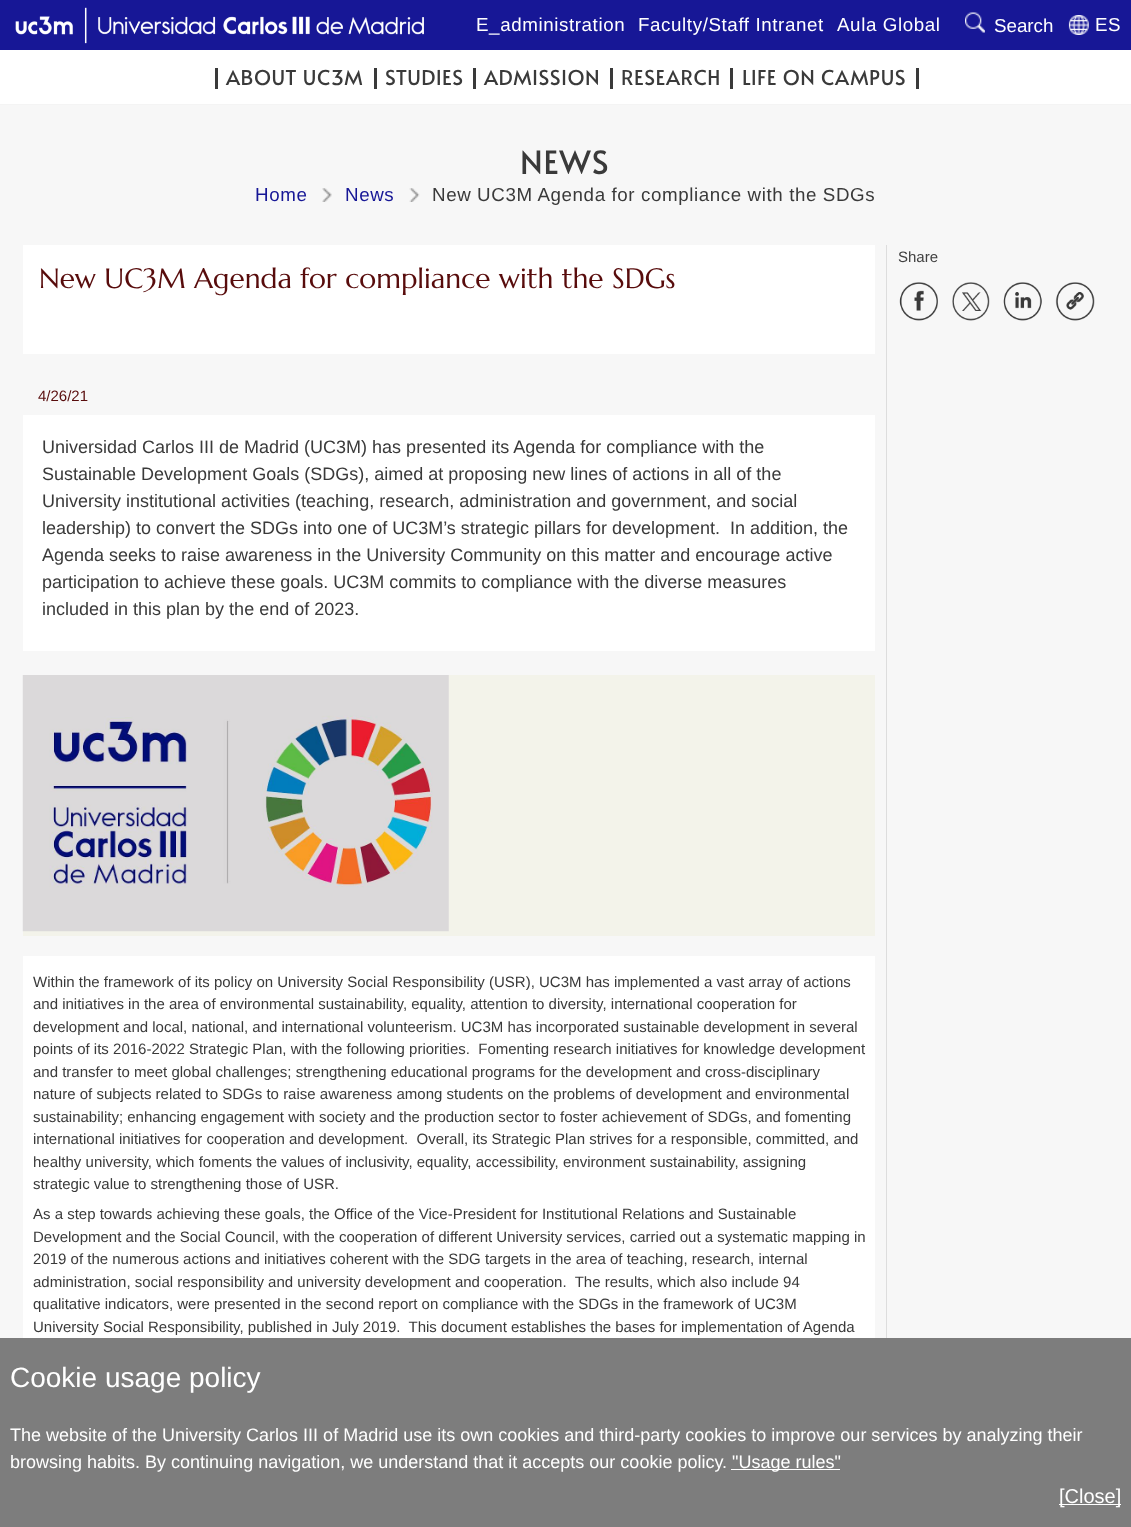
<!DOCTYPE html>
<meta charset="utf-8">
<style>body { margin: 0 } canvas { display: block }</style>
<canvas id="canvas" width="1131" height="1527"></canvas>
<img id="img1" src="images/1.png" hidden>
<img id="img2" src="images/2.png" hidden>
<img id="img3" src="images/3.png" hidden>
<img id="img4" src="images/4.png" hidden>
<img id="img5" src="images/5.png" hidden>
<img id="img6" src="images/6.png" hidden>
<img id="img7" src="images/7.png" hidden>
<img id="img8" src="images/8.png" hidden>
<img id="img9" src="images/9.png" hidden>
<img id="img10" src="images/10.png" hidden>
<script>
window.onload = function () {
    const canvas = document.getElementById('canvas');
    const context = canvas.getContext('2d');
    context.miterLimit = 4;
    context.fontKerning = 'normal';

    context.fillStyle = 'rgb(247, 247, 247)';
    context.fillRect(0, 0, 1131, 1527);
    context.fillStyle = 'rgb(23, 23, 150)';
    context.fillRect(0, 0, 1131, 50);
    context.drawImage(document.getElementById('img1'), 15, 7, 409, 37);
    context.drawImage(document.getElementById('img2'), 1068, 15, 21, 20);
    context.drawImage(document.getElementById('img3'), 965, 12, 20, 21);
    context.fillStyle = 'rgb(255, 255, 255)';
    context.fillRect(0, 50, 1131, 54);
    context.fillStyle = 'rgb(244, 244, 244)';
    context.fillRect(0, 104, 1131, 1);
    context.fillStyle = 'rgb(58, 58, 58)';
    context.fillRect(215, 68, 3, 21);
    context.fillRect(374, 68, 3, 21);
    context.fillRect(473, 68, 3, 21);
    context.fillRect(610, 68, 3, 21);
    context.fillRect(730, 68, 3, 21);
    context.fillRect(916, 68, 3, 21);
    context.drawImage(document.getElementById('img4'), 322, 188, 10, 14);
    context.drawImage(document.getElementById('img5'), 409, 188, 11, 14);
    context.drawImage(document.getElementById('img6'), 899, 282, 39, 39);
    context.drawImage(document.getElementById('img7'), 952, 282, 38, 39);
    context.drawImage(document.getElementById('img8'), 1003, 282, 39, 39);
    context.drawImage(document.getElementById('img9'), 1055, 282, 40, 39);
    context.fillStyle = 'rgb(221, 221, 221)';
    context.fillRect(886, 245, 1, 1093);
    context.fillStyle = 'rgb(255, 255, 255)';
    context.fillRect(23, 245, 852, 109);
    context.fillRect(23, 415, 852, 236);
    context.fillStyle = 'rgb(243, 243, 234)';
    context.fillRect(23, 675, 852, 261);
    context.drawImage(document.getElementById('img10'), 22, 675, 427, 257);
    context.fillStyle = 'rgb(255, 255, 255)';
    context.fillRect(23, 956, 852, 382);
    context.fillStyle = 'rgb(125, 125, 125)';
    context.fillRect(0, 1338, 1131, 189);
    context.fillStyle = 'rgb(255, 255, 255)';
    context.fillRect(731, 1469, 109, 1);
    context.fillRect(1059, 1504, 62, 1);
    context.letterSpacing = '0.6px';
    context.font = '18.75px Liberation Sans';
    context.fillText('E_administration', 476, 31);
    context.fillText('Faculty/Staff Intranet', 638, 31);
    context.fillText('Aula Global', 837, 31);
    context.fillText('ES', 1095, 31);
    context.letterSpacing = '0px';
    context.fillText('Search', 994, 32);
    context.letterSpacing = '0.6px';
    context.font = '20.5px Alata';
    context.fillStyle = 'rgb(58, 58, 58)';
    context.fillText('ABOUT UC3M', 226, 85);
    context.fillText('STUDIES', 385, 85);
    context.fillText('ADMISSION', 484, 85);
    context.fillText('RESEARCH', 621, 85);
    context.fillText('LIFE ON CAMPUS', 742, 85);
    context.letterSpacing = '1px';
    context.font = '32px Alata';
    context.fillText('NEWS', 520, 174);
    context.letterSpacing = '0.6px';
    context.font = '18.75px Liberation Sans';
    context.fillStyle = 'rgb(23, 23, 150)';
    context.fillText('Home', 255, 201);
    context.fillText('News', 345, 201);
    context.fillStyle = 'rgb(58, 58, 58)';
    context.fillText('New UC3M Agenda for compliance with the SDGs', 432, 201);
    context.letterSpacing = '0px';
    context.font = '15px Liberation Sans';
    context.fillStyle = 'rgb(65, 65, 65)';
    context.fillText('Share', 898, 262);
    context.font = '28px Marcellus';
    context.fillStyle = 'rgb(88, 12, 12)';
    context.fillText('New UC3M Agenda for compliance with the SDGs', 39, 288);
    context.font = '15px Liberation Sans';
    context.fillText('4/26/21', 38, 401);
    context.font = '18px Liberation Sans';
    context.fillStyle = 'rgb(58, 58, 58)';
    context.fillText('Universidad Carlos III de Madrid (UC3M) has presented its Agenda for compliance with the', 42, 453);
    context.fillText('Sustainable Development Goals (SDGs), aimed at proposing new lines of actions in all of the', 42, 480);
    context.fillText('University institutional activities (teaching, research, administration and government, and social', 42, 507);
    context.fillText('leadership) to convert the SDGs into one of UC3M’s strategic pillars for development.  In addition, the', 42, 534);
    context.fillText('Agenda seeks to raise awareness in the University Community on this matter and encourage active', 42, 561);
    context.fillText('participation to achieve these goals. UC3M commits to compliance with the diverse measures', 42, 588);
    context.fillText('included in this plan by the end of 2023.', 42, 615);
    context.font = '15px Liberation Sans';
    context.fillText('Within the framework of its policy on University Social Responsibility (USR), UC3M has implemented a vast array of actions', 33, 987);
    context.fillText('and initiatives in the area of environmental sustainability, equality, attention to diversity, international cooperation for', 33, 1009);
    context.fillText('development and local, national, and international volunteerism. UC3M has incorporated sustainable development in several', 33, 1032);
    context.fillText('points of its 2016-2022 Strategic Plan, with the following priorities.  Fomenting research initiatives for knowledge development', 33, 1054);
    context.fillText('and transfer to meet global challenges; strengthening educational programs for the development and cross-disciplinary', 33, 1077);
    context.fillText('nature of subjects related to SDGs to raise awareness among students on the problems of development and environmental', 33, 1099);
    context.fillText('sustainability; enhancing engagement with society and the production sector to foster achievement of SDGs, and fomenting', 33, 1122);
    context.fillText('international initiatives for cooperation and development.  Overall, its Strategic Plan strives for a responsible, committed, and', 33, 1144);
    context.fillText('healthy university, which foments the values of inclusivity, equality, accessibility, environment sustainability, assigning', 33, 1167);
    context.fillText('strategic value to strengthening those of USR.', 33, 1189);
    context.fillText('As a step towards achieving these goals, the Office of the Vice-President for Institutional Relations and Sustainable', 33, 1219);
    context.fillText('Development and the Social Council, with the cooperation of different University services, carried out a systematic mapping in', 33, 1242);
    context.fillText('2019 of the numerous actions and initiatives coherent with the SDG targets in the area of teaching, research, internal', 33, 1264);
    context.fillText('administration, social responsibility and university development and cooperation.  The results, which also include 94', 33, 1287);
    context.fillText('qualitative indicators, were presented in the second report on compliance with the SDGs in the framework of UC3M', 33, 1309);
    context.fillText('University Social Responsibility, published in July 2019.  This document establishes the bases for implementation of Agenda', 33, 1332);
    context.font = '28px Liberation Sans';
    context.fillStyle = 'rgb(255, 255, 255)';
    context.fillText('Cookie usage policy', 10, 1387);
    context.font = '18px Liberation Sans';
    context.fillText('The website of the University Carlos III of Madrid use its own cookies and third-party cookies to improve our services by analyzing their', 10, 1441);
    context.fillText('browsing habits. By continuing navigation, we understand that it accepts our cookie policy.', 10, 1468);
    context.fillText('"Usage rules"', 732, 1468);
    context.font = '20px Liberation Sans';
    context.fillText('[Close]', 1059, 1503);
};
</script>
